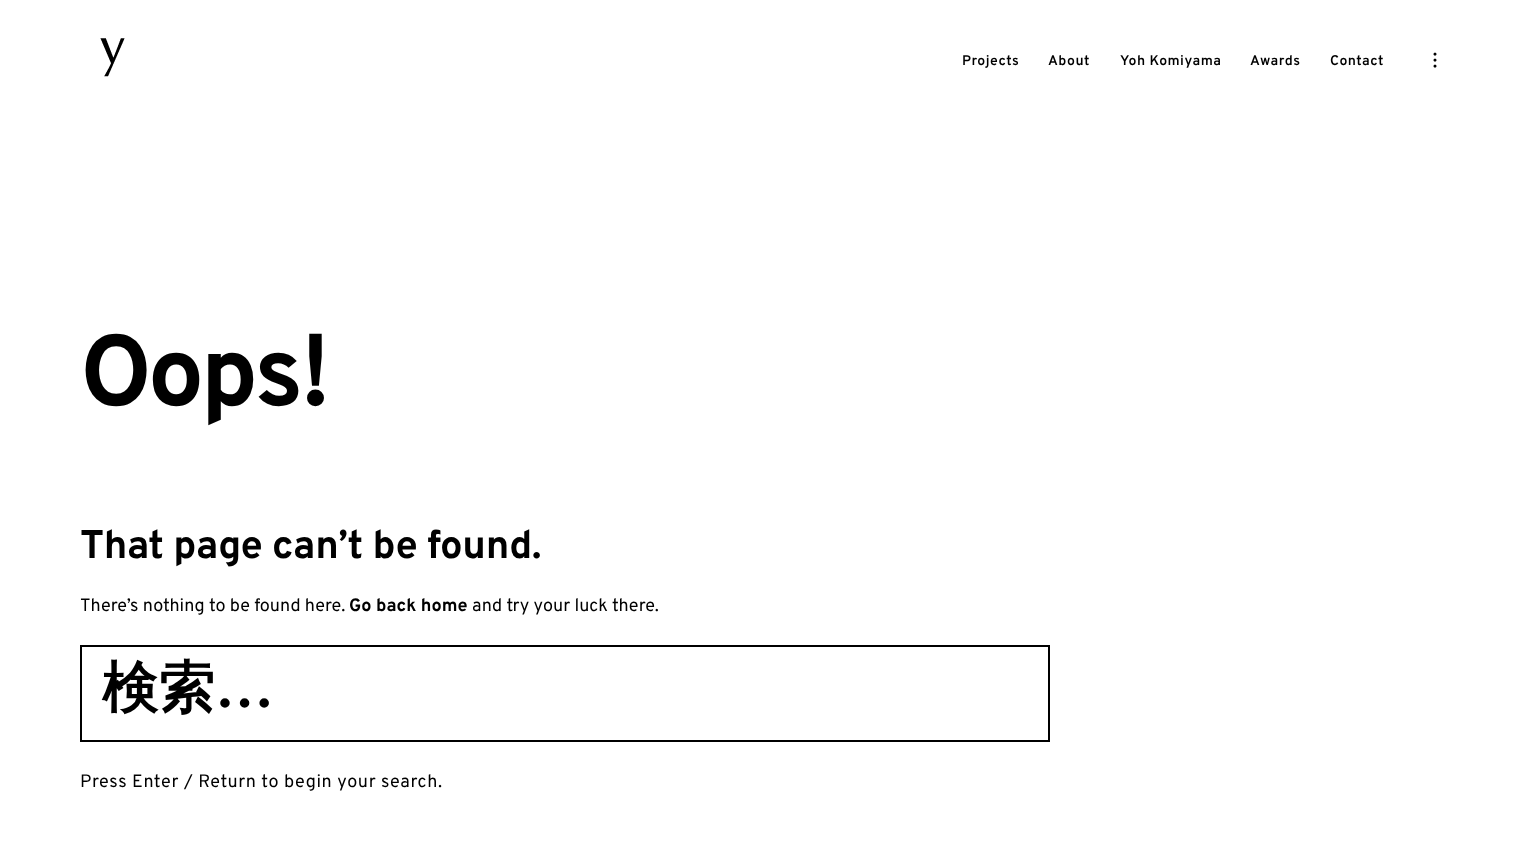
<!DOCTYPE html>
<meta charset="utf-8">
<style>body { margin: 0 } canvas { display: block }</style>
<canvas id="canvas" width="1524" height="850"></canvas>
<img id="img1" src="images/1.png" hidden>
<img id="img2" src="images/2.png" hidden>
<script>
window.onload = function () {
    const canvas = document.getElementById('canvas');
    const context = canvas.getContext('2d');
    context.miterLimit = 4;
    context.fontKerning = 'normal';

    context.fillStyle = 'rgb(255, 255, 255)';
    context.fillRect(0, 0, 1524, 850);
    context.drawImage(document.getElementById('img1'), 100, 38, 25, 39);
    context.drawImage(document.getElementById('img2'), 1433, 52, 4, 16);
    context.strokeStyle = 'rgb(0, 0, 0)';
    context.lineWidth = 2;
    context.strokeRect(81, 646, 968, 95);
    context.letterSpacing = '0.5px';
    context.font = '600 14px Overpass';
    context.fillStyle = 'rgb(0, 0, 0)';
    context.fillText('Projects', 962, 65);
    context.fillText('About', 1048, 65);
    context.fillText('Yoh Komiyama', 1120, 65);
    context.fillText('Awards', 1250, 65);
    context.fillText('Contact', 1330, 65);
    context.letterSpacing = '-3px';
    context.font = 'bold 100px Overpass';
    context.fillText('Oops!', 80, 405);
    context.letterSpacing = '-0.4px';
    context.font = 'bold 40px Overpass';
    context.fillText('That page can’t be found.', 80, 558);
    context.letterSpacing = '0px';
    context.font = '18px Overpass';
    context.fillText('There’s nothing to be found here.', 80, 611);
    context.font = 'bold 18px Overpass';
    context.fillText('Go back home', 349, 611);
    context.font = '18px Overpass';
    context.fillText('and try your luck there.', 472, 611);
    context.letterSpacing = '0.5px';
    context.font = 'bold 56px WenQuanYi Zen Hei';
    context.fillText('検索', 102, 707);
    context.font = 'bold 56px Overpass';
    context.fillText('…', 215, 707);
    context.letterSpacing = '0.6px';
    context.font = '18px Overpass';
    context.fillText('Press Enter / Return to begin your search.', 80, 787);
};
</script>
